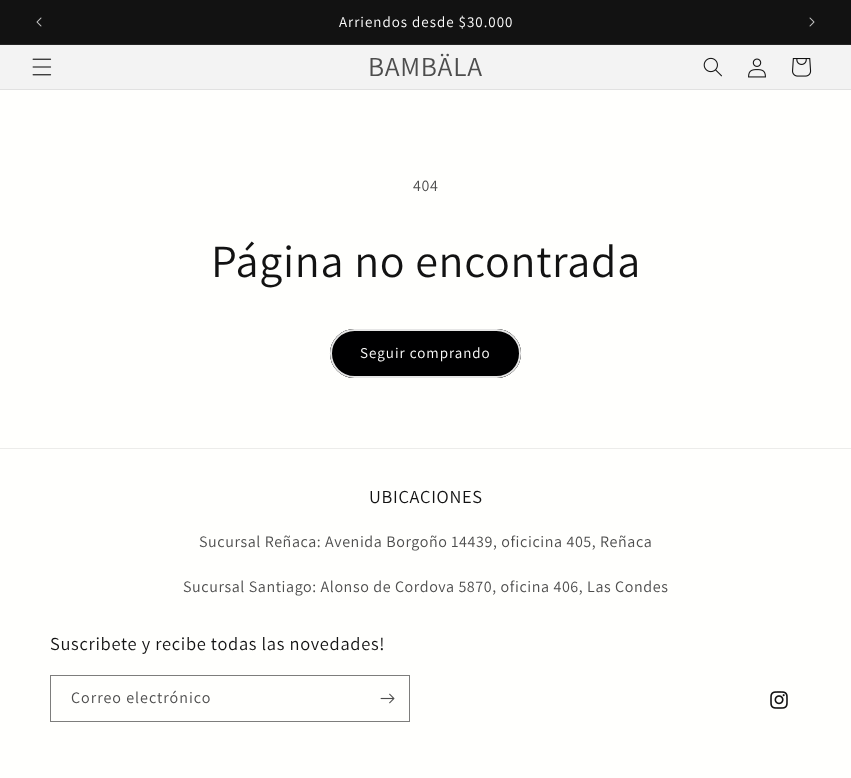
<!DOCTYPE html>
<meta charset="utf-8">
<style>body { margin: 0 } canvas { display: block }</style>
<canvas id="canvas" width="851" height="778"></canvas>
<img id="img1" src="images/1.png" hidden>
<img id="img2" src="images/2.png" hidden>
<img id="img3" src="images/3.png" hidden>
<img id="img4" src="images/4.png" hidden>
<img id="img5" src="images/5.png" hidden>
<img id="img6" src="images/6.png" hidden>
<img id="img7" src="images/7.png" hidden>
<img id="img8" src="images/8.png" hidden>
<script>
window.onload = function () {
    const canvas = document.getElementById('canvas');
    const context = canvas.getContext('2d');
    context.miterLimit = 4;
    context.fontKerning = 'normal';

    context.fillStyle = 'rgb(255, 255, 253)';
    context.fillRect(0, 0, 851, 778);
    context.fillStyle = 'rgb(18, 18, 18)';
    context.fillRect(0, 0, 851, 44);
    context.fillStyle = 'rgb(37, 37, 37)';
    context.fillRect(0, 44, 851, 1);
    context.drawImage(document.getElementById('img1'), 36, 17, 6, 10);
    context.drawImage(document.getElementById('img2'), 809, 17, 6, 10);
    context.fillStyle = 'rgb(243, 243, 243)';
    context.fillRect(0, 45, 851, 44);
    context.fillStyle = 'rgb(225, 225, 225)';
    context.fillRect(0, 89, 851, 1);
    context.drawImage(document.getElementById('img3'), 32, 58, 20, 18);
    context.drawImage(document.getElementById('img4'), 703, 57, 19, 20);
    context.drawImage(document.getElementById('img5'), 748, 58, 18, 20);
    context.drawImage(document.getElementById('img6'), 792, 58, 20, 19);
    context.fillStyle = 'rgb(0, 0, 1)';
    context.beginPath();
    context.roundRect(330, 329, 191, 49, 24.5);
    context.fill();
    context.beginPath();
    context.roundRect(331, 330, 189, 47, 23.5);
    context.strokeStyle = 'rgb(0, 0, 1)';
    context.lineWidth = 2;
    context.stroke();
    context.beginPath();
    context.roundRect(331, 330, 189, 47, 23.5);
    context.strokeStyle = 'rgba(255, 255, 255, 0.9)';
    context.stroke();
    context.fillStyle = 'rgb(236, 236, 234)';
    context.fillRect(0, 448, 851, 1);
    context.strokeStyle = 'rgb(125, 125, 124)';
    context.lineWidth = 1;
    context.strokeRect(50.5, 675.5, 359, 46);
    context.drawImage(document.getElementById('img7'), 380, 693, 15, 11);
    context.drawImage(document.getElementById('img8'), 770, 691, 18, 18);
    context.letterSpacing = '1px';
    context.font = '15px Assistant';
    context.fillStyle = 'rgb(255, 255, 255)';
    context.fillText('Arriendos desde $30.000', 339, 27);
    context.letterSpacing = '0.7px';
    context.font = '27.5px Assistant';
    context.fillStyle = 'rgb(77, 77, 77)';
    context.fillText('BAMBÄLA', 368, 76);
    context.letterSpacing = '0.6px';
    context.font = '16px Assistant';
    context.fillText('404', 413, 191);
    context.letterSpacing = '0.7px';
    context.font = '46px Assistant';
    context.fillStyle = 'rgb(18, 18, 18)';
    context.fillText('Página no encontrada', 211, 277);
    context.letterSpacing = '1px';
    context.font = '15px Assistant';
    context.fillStyle = 'rgb(255, 255, 255)';
    context.fillText('Seguir comprando', 360, 358);
    context.letterSpacing = '0.7px';
    context.font = '18.4px Assistant';
    context.fillStyle = 'rgb(18, 18, 18)';
    context.fillText('UBICACIONES', 369, 503);
    context.letterSpacing = '0.6px';
    context.font = '16px Assistant';
    context.fillStyle = 'rgb(77, 77, 77)';
    context.fillText('Sucursal Reñaca: Avenida Borgoño 14439, oficicina 405, Reñaca', 199, 547);
    context.fillText('Sucursal Santiago: Alonso de Cordova 5870, oficina 406, Las Condes', 183, 592);
    context.letterSpacing = '0.7px';
    context.font = '18.4px Assistant';
    context.fillStyle = 'rgb(18, 18, 18)';
    context.fillText('Suscribete y recibe todas las novedades!', 50, 650);
    context.letterSpacing = '1px';
    context.font = '16px Assistant';
    context.fillStyle = 'rgb(77, 77, 77)';
    context.fillText('Correo electrónico', 71, 703);
};
</script>
